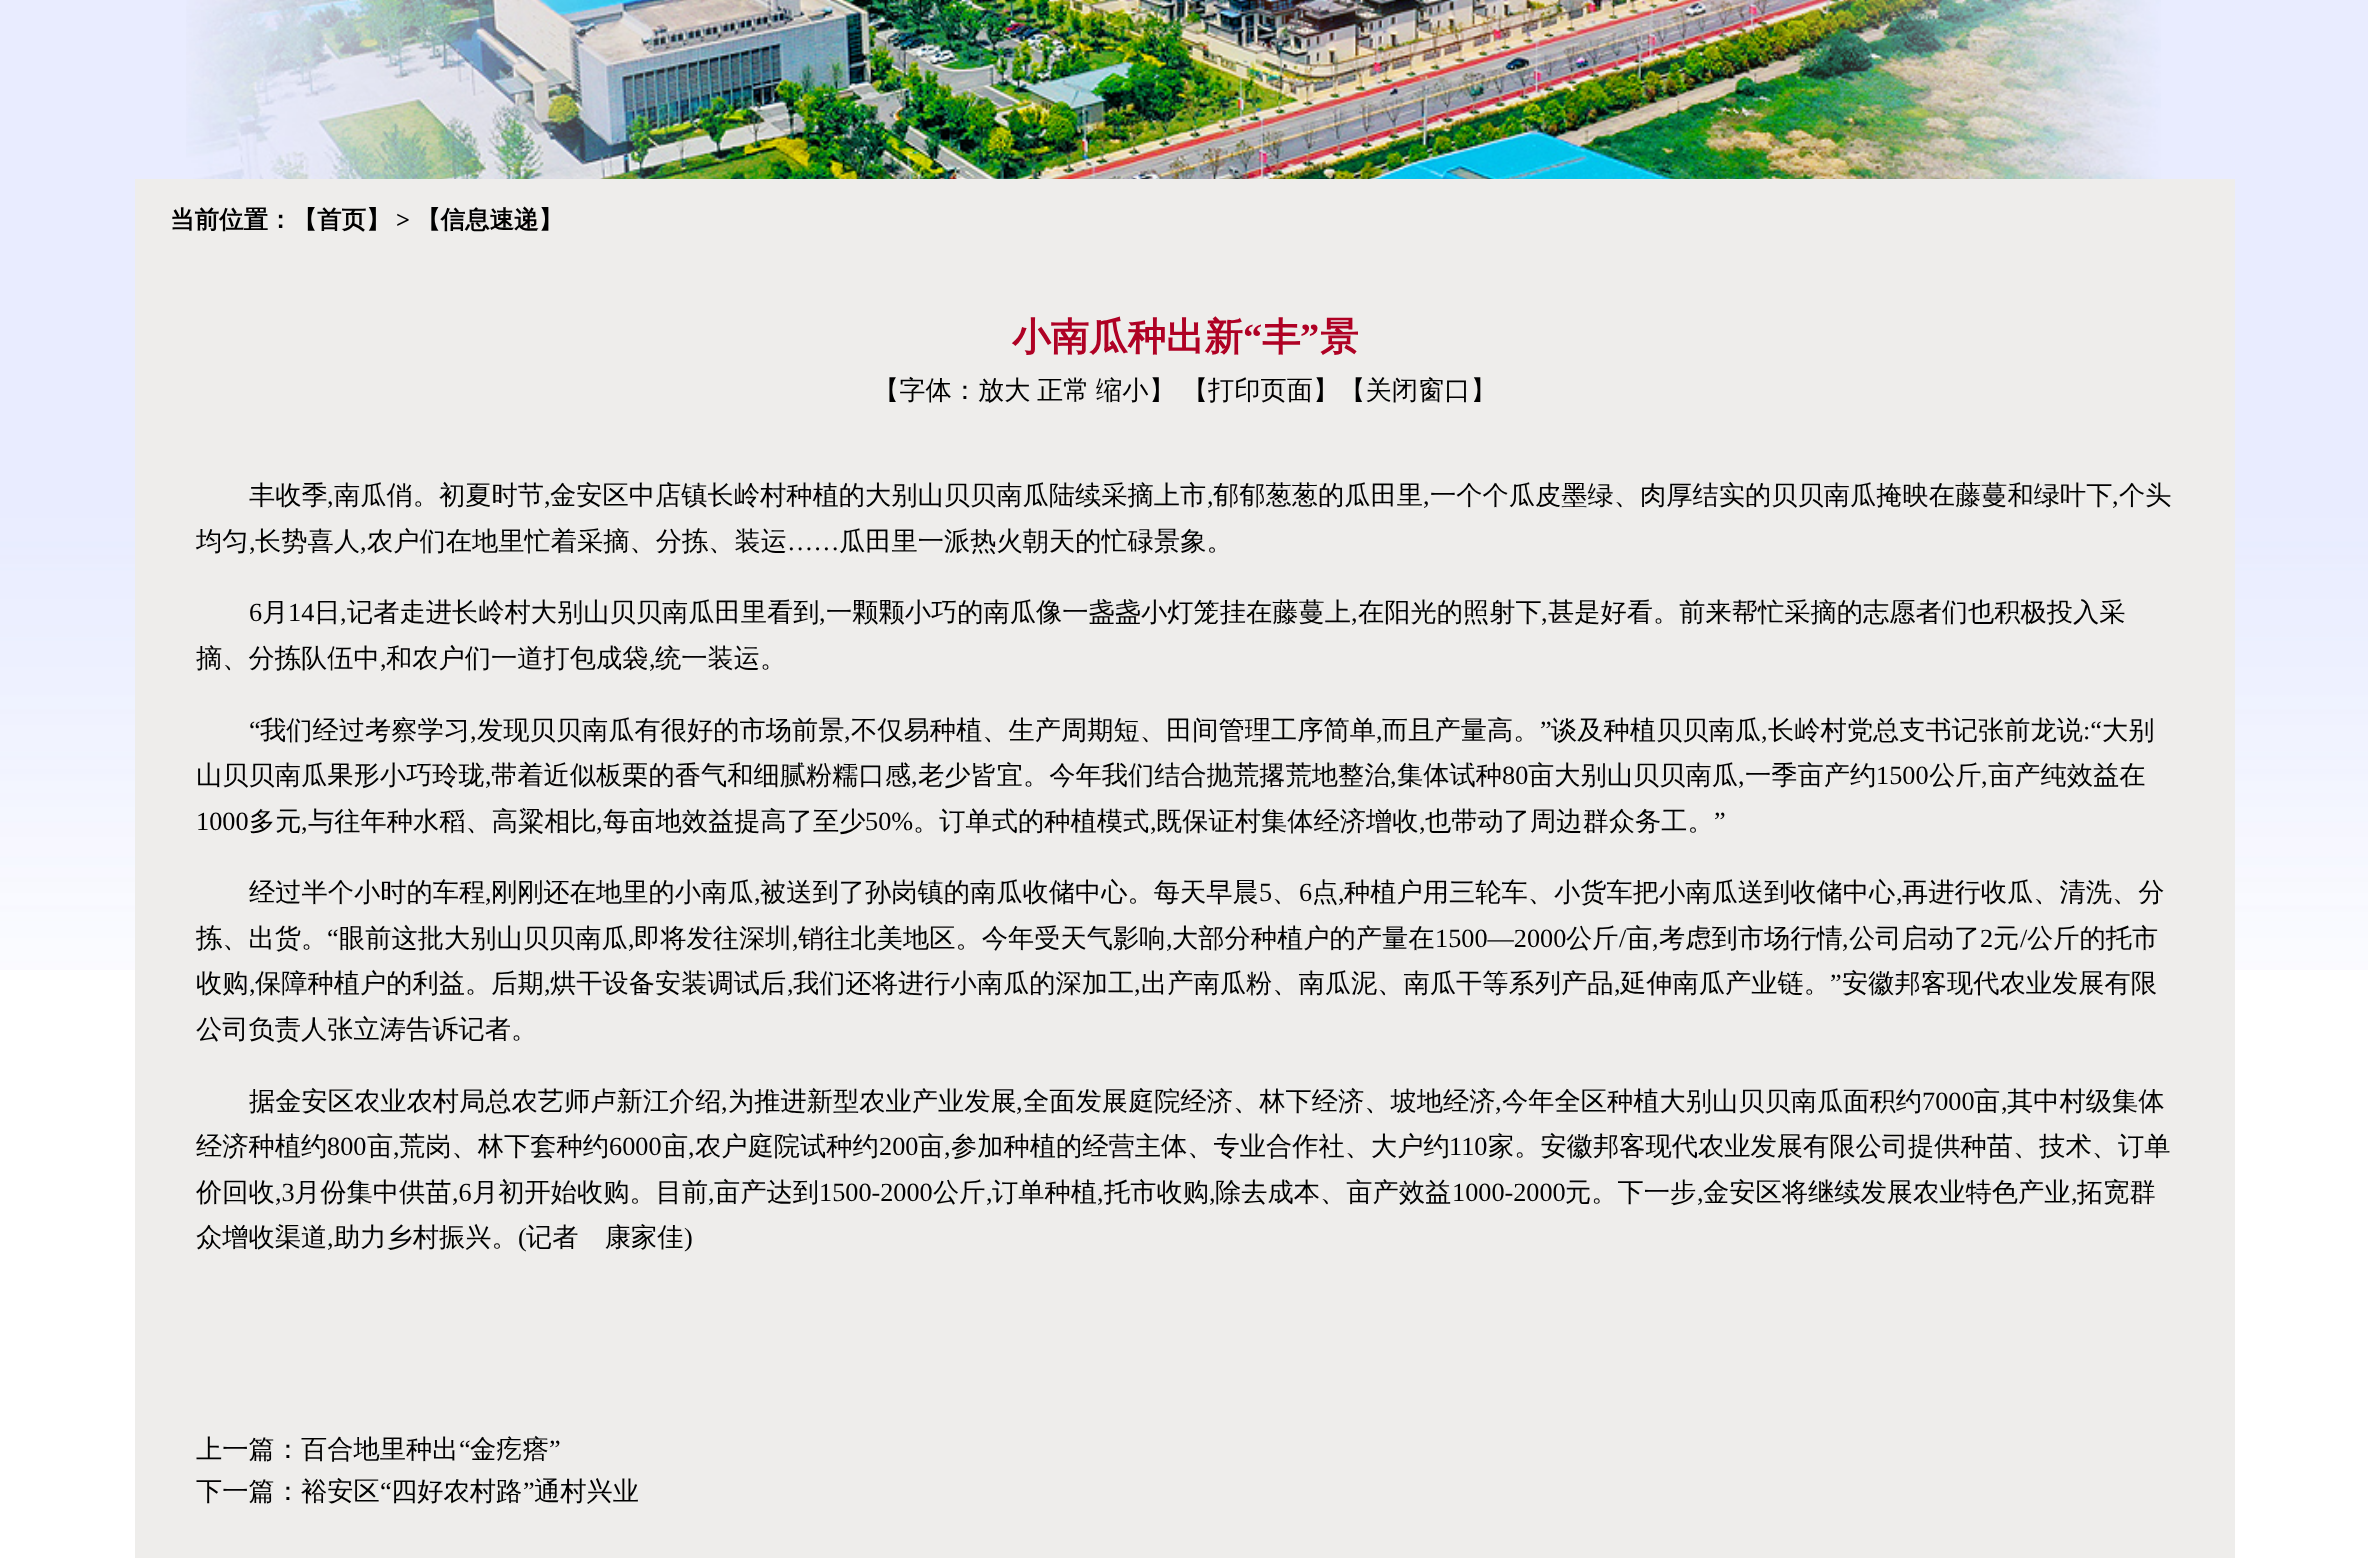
<!DOCTYPE html>
<meta charset="utf-8">
<style>body { margin: 0 } canvas { display: block }</style>
<canvas id="canvas" width="2368" height="1558"></canvas>
<img id="img1" src="images/1.png" hidden>
<img id="img2" src="images/2.png" hidden>
<script>
window.onload = function () {
    const canvas = document.getElementById('canvas');
    const context = canvas.getContext('2d');
    context.miterLimit = 4;
    context.fontKerning = 'normal';

    context.fillStyle = 'rgb(255, 255, 255)';
    context.fillRect(0, 0, 2368, 1558);
    context.drawImage(document.getElementById('img1'), 0, 0, 2368, 970);
    context.drawImage(document.getElementById('img2'), 186, 0, 1975, 179);
    context.fillStyle = 'rgb(238, 237, 235)';
    context.fillRect(135, 179, 2100, 1379);
    context.font = 'bold 24.5px WenQuanYi Zen Hei';
    context.fillStyle = 'rgb(0, 0, 0)';
    context.fillText('当前位置：【首页】', 170, 228);
    context.font = 'bold 24.5px Liberation Serif';
    context.fillText('>', 396, 228);
    context.font = 'bold 24.5px WenQuanYi Zen Hei';
    context.fillText('【信息速递】', 416, 228);
    context.font = 'bold 38.5px WenQuanYi Zen Hei';
    context.fillStyle = 'rgb(175, 1, 36)';
    context.fillText('小南瓜种出新', 1012, 350);
    context.font = 'bold 38.5px Liberation Serif';
    context.fillText('“', 1243, 350);
    context.font = 'bold 38.5px WenQuanYi Zen Hei';
    context.fillText('丰', 1262, 350);
    context.font = 'bold 38.5px Liberation Serif';
    context.fillText('”', 1300, 350);
    context.font = 'bold 38.5px WenQuanYi Zen Hei';
    context.fillText('景', 1320, 350);
    context.font = '500 26.25px WenQuanYi Zen Hei';
    context.fillStyle = 'rgb(0, 0, 0)';
    context.fillText('【字体：放大', 873, 399);
    context.fillText('正常', 1037, 399);
    context.fillText('缩小', 1096, 399);
    context.wordSpacing = '-1px';
    context.fillText('】 【', 1149, 399);
    context.wordSpacing = '0px';
    context.fillText('打印页面】【关闭窗口】', 1208, 399);
    context.fillText('丰收季', 249, 504);
    context.font = '26.25px Liberation Serif';
    context.fillText(',', 327, 504);
    context.font = '500 26.25px WenQuanYi Zen Hei';
    context.fillText('南瓜俏。初夏时节', 334, 504);
    context.font = '26.25px Liberation Serif';
    context.fillText(',', 544, 504);
    context.font = '500 26.25px WenQuanYi Zen Hei';
    context.fillText('金安区中店镇长岭村种植的大别山贝贝南瓜陆续采摘上市', 550, 504);
    context.font = '26.25px Liberation Serif';
    context.fillText(',', 1207, 504);
    context.font = '500 26.25px WenQuanYi Zen Hei';
    context.fillText('郁郁葱葱的瓜田里', 1213, 504);
    context.font = '26.25px Liberation Serif';
    context.fillText(',', 1423, 504);
    context.font = '500 26.25px WenQuanYi Zen Hei';
    context.fillText('一个个瓜皮墨绿、肉厚结实的贝贝南瓜掩映在藤蔓和绿叶下', 1430, 504);
    context.font = '26.25px Liberation Serif';
    context.fillText(',', 2112, 504);
    context.font = '500 26.25px WenQuanYi Zen Hei';
    context.fillText('个头', 2119, 504);
    context.fillText('均匀', 196, 550);
    context.font = '26.25px Liberation Serif';
    context.fillText(',', 249, 550);
    context.font = '500 26.25px WenQuanYi Zen Hei';
    context.fillText('长势喜人', 255, 550);
    context.font = '26.25px Liberation Serif';
    context.fillText(',', 360, 550);
    context.font = '500 26.25px WenQuanYi Zen Hei';
    context.fillText('农户们在地里忙着采摘、分拣、装运', 367, 550);
    context.font = '26.25px Liberation Serif';
    context.fillText('……', 787, 550);
    context.font = '500 26.25px WenQuanYi Zen Hei';
    context.fillText('瓜田里一派热火朝天的忙碌景象。', 839, 550);
    context.font = '26.25px Liberation Serif';
    context.fillText('6', 249, 621);
    context.font = '500 26.25px WenQuanYi Zen Hei';
    context.fillText('月', 262, 621);
    context.font = '26.25px Liberation Serif';
    context.fillText('14', 288, 621);
    context.font = '500 26.25px WenQuanYi Zen Hei';
    context.fillText('日', 314, 621);
    context.font = '26.25px Liberation Serif';
    context.fillText(',', 340, 621);
    context.font = '500 26.25px WenQuanYi Zen Hei';
    context.fillText('记者走进长岭村大别山贝贝南瓜田里看到', 347, 621);
    context.font = '26.25px Liberation Serif';
    context.fillText(',', 819, 621);
    context.font = '500 26.25px WenQuanYi Zen Hei';
    context.fillText('一颗颗小巧的南瓜像一盏盏小灯笼挂在藤蔓上', 826, 621);
    context.font = '26.25px Liberation Serif';
    context.fillText(',', 1351, 621);
    context.font = '500 26.25px WenQuanYi Zen Hei';
    context.fillText('在阳光的照射下', 1358, 621);
    context.font = '26.25px Liberation Serif';
    context.fillText(',', 1541, 621);
    context.font = '500 26.25px WenQuanYi Zen Hei';
    context.fillText('甚是好看。前来帮忙采摘的志愿者们也积极投入采', 1548, 621);
    context.fillText('摘、分拣队伍中', 196, 667);
    context.font = '26.25px Liberation Serif';
    context.fillText(',', 380, 667);
    context.font = '500 26.25px WenQuanYi Zen Hei';
    context.fillText('和农户们一道打包成袋', 386, 667);
    context.font = '26.25px Liberation Serif';
    context.fillText(',', 649, 667);
    context.font = '500 26.25px WenQuanYi Zen Hei';
    context.fillText('统一装运。', 655, 667);
    context.font = '26.25px Liberation Serif';
    context.fillText('“', 249, 739);
    context.font = '500 26.25px WenQuanYi Zen Hei';
    context.fillText('我们经过考察学习', 260, 739);
    context.font = '26.25px Liberation Serif';
    context.fillText(',', 470, 739);
    context.font = '500 26.25px WenQuanYi Zen Hei';
    context.fillText('发现贝贝南瓜有很好的市场前景', 477, 739);
    context.font = '26.25px Liberation Serif';
    context.fillText(',', 844, 739);
    context.font = '500 26.25px WenQuanYi Zen Hei';
    context.fillText('不仅易种植、生产周期短、田间管理工序简单', 851, 739);
    context.font = '26.25px Liberation Serif';
    context.fillText(',', 1376, 739);
    context.font = '500 26.25px WenQuanYi Zen Hei';
    context.fillText('而且产量高。', 1382, 739);
    context.font = '26.25px Liberation Serif';
    context.fillText('”', 1540, 739);
    context.font = '500 26.25px WenQuanYi Zen Hei';
    context.fillText('谈及种植贝贝南瓜', 1551, 739);
    context.font = '26.25px Liberation Serif';
    context.fillText(',', 1761, 739);
    context.font = '500 26.25px WenQuanYi Zen Hei';
    context.fillText('长岭村党总支书记张前龙说', 1768, 739);
    context.font = '26.25px Liberation Serif';
    context.fillText(':“', 2083, 739);
    context.font = '500 26.25px WenQuanYi Zen Hei';
    context.fillText('大别', 2102, 739);
    context.fillText('山贝贝南瓜果形小巧玲珑', 196, 784);
    context.font = '26.25px Liberation Serif';
    context.fillText(',', 485, 784);
    context.font = '500 26.25px WenQuanYi Zen Hei';
    context.fillText('带着近似板栗的香气和细腻粉糯口感', 491, 784);
    context.font = '26.25px Liberation Serif';
    context.fillText(',', 911, 784);
    context.font = '500 26.25px WenQuanYi Zen Hei';
    context.fillText('老少皆宜。今年我们结合抛荒撂荒地整治', 918, 784);
    context.font = '26.25px Liberation Serif';
    context.fillText(',', 1390, 784);
    context.font = '500 26.25px WenQuanYi Zen Hei';
    context.fillText('集体试种', 1397, 784);
    context.font = '26.25px Liberation Serif';
    context.fillText('80', 1502, 784);
    context.font = '500 26.25px WenQuanYi Zen Hei';
    context.fillText('亩大别山贝贝南瓜', 1528, 784);
    context.font = '26.25px Liberation Serif';
    context.fillText(',', 1738, 784);
    context.font = '500 26.25px WenQuanYi Zen Hei';
    context.fillText('一季亩产约', 1745, 784);
    context.font = '26.25px Liberation Serif';
    context.fillText('1500', 1876, 784);
    context.font = '500 26.25px WenQuanYi Zen Hei';
    context.fillText('公斤', 1929, 784);
    context.font = '26.25px Liberation Serif';
    context.fillText(',', 1981, 784);
    context.font = '500 26.25px WenQuanYi Zen Hei';
    context.fillText('亩产纯效益在', 1988, 784);
    context.font = '26.25px Liberation Serif';
    context.fillText('1000', 196, 830);
    context.font = '500 26.25px WenQuanYi Zen Hei';
    context.fillText('多元', 249, 830);
    context.fillText('与往年种水稻、高粱相比', 308, 830);
    context.fillText('每亩地效益提高了至少', 603, 830);
    context.font = '26.25px Liberation Serif';
    context.fillText('50%', 865, 830);
    context.font = '500 26.25px WenQuanYi Zen Hei';
    context.fillText('。订单式的种植模式', 913, 830);
    context.fillText('既保证村集体经济增收', 1156, 830);
    context.fillText('也带动了周边群众务工。', 1425, 830);
    context.font = '26.25px Liberation Serif';
    context.fillText('”', 1714, 830);
    context.fillText(',', 301, 830);
    context.fillText(',', 596, 830);
    context.fillText(',', 1150, 830);
    context.fillText(',', 1419, 830);
    context.font = '500 26.25px WenQuanYi Zen Hei';
    context.fillText('经过半个小时的车程', 249, 901);
    context.font = '26.25px Liberation Serif';
    context.fillText(',', 485, 901);
    context.font = '500 26.25px WenQuanYi Zen Hei';
    context.fillText('刚刚还在地里的小南瓜', 491, 901);
    context.font = '26.25px Liberation Serif';
    context.fillText(',', 754, 901);
    context.font = '500 26.25px WenQuanYi Zen Hei';
    context.fillText('被送到了孙岗镇的南瓜收储中心。每天早晨', 760, 901);
    context.font = '26.25px Liberation Serif';
    context.fillText('5', 1259, 901);
    context.font = '500 26.25px WenQuanYi Zen Hei';
    context.fillText('、', 1272, 901);
    context.font = '26.25px Liberation Serif';
    context.fillText('6', 1299, 901);
    context.font = '500 26.25px WenQuanYi Zen Hei';
    context.fillText('点', 1312, 901);
    context.font = '26.25px Liberation Serif';
    context.fillText(',', 1338, 901);
    context.font = '500 26.25px WenQuanYi Zen Hei';
    context.fillText('种植户用三轮车、小货车把小南瓜送到收储中心', 1344, 901);
    context.font = '26.25px Liberation Serif';
    context.fillText(',', 1896, 901);
    context.font = '500 26.25px WenQuanYi Zen Hei';
    context.fillText('再进行收瓜、清洗、分', 1902, 901);
    context.fillText('拣、出货。', 196, 947);
    context.font = '26.25px Liberation Serif';
    context.fillText('“', 327, 947);
    context.font = '500 26.25px WenQuanYi Zen Hei';
    context.fillText('眼前这批大别山贝贝南瓜', 339, 947);
    context.font = '26.25px Liberation Serif';
    context.fillText(',', 628, 947);
    context.font = '500 26.25px WenQuanYi Zen Hei';
    context.fillText('即将发往深圳', 634, 947);
    context.font = '26.25px Liberation Serif';
    context.fillText(',', 792, 947);
    context.font = '500 26.25px WenQuanYi Zen Hei';
    context.fillText('销往北美地区。今年受天气影响', 798, 947);
    context.font = '26.25px Liberation Serif';
    context.fillText(',', 1166, 947);
    context.font = '500 26.25px WenQuanYi Zen Hei';
    context.fillText('大部分种植户的产量在', 1172, 947);
    context.font = '26.25px Liberation Serif';
    context.fillText('1500—2000', 1435, 947);
    context.font = '500 26.25px WenQuanYi Zen Hei';
    context.fillText('公斤', 1566, 947);
    context.font = '26.25px Liberation Serif';
    context.fillText('/', 1619, 947);
    context.font = '500 26.25px WenQuanYi Zen Hei';
    context.fillText('亩', 1626, 947);
    context.font = '26.25px Liberation Serif';
    context.fillText(',', 1652, 947);
    context.font = '500 26.25px WenQuanYi Zen Hei';
    context.fillText('考虑到市场行情', 1659, 947);
    context.font = '26.25px Liberation Serif';
    context.fillText(',', 1842, 947);
    context.font = '500 26.25px WenQuanYi Zen Hei';
    context.fillText('公司启动了', 1849, 947);
    context.font = '26.25px Liberation Serif';
    context.fillText('2', 1980, 947);
    context.font = '500 26.25px WenQuanYi Zen Hei';
    context.fillText('元', 1993, 947);
    context.font = '26.25px Liberation Serif';
    context.fillText('/', 2020, 947);
    context.font = '500 26.25px WenQuanYi Zen Hei';
    context.fillText('公斤的托市', 2027, 947);
    context.fillText('收购', 196, 992);
    context.fillText('保障种植户的利益。后期', 255, 992);
    context.fillText('烘干设备安装调试后', 550, 992);
    context.fillText('我们还将进行小南瓜的深加工', 793, 992);
    context.fillText('出产南瓜粉、南瓜泥、南瓜干等系列产品', 1141, 992);
    context.fillText('延伸南瓜产业链。', 1620, 992);
    context.font = '26.25px Liberation Serif';
    context.fillText('”', 1830, 992);
    context.font = '500 26.25px WenQuanYi Zen Hei';
    context.fillText('安徽邦客现代农业发展有限', 1842, 992);
    context.font = '26.25px Liberation Serif';
    context.fillText(',', 249, 992);
    context.fillText(',', 544, 992);
    context.fillText(',', 787, 992);
    context.fillText(',', 1134, 992);
    context.fillText(',', 1614, 992);
    context.font = '500 26.25px WenQuanYi Zen Hei';
    context.fillText('公司负责人张立涛告诉记者。', 196, 1038);
    context.fillText('据金安区农业农村局总农艺师卢新江介绍', 249, 1110);
    context.font = '26.25px Liberation Serif';
    context.fillText(',', 721, 1110);
    context.font = '500 26.25px WenQuanYi Zen Hei';
    context.fillText('为推进新型农业产业发展', 728, 1110);
    context.font = '26.25px Liberation Serif';
    context.fillText(',', 1016, 1110);
    context.font = '500 26.25px WenQuanYi Zen Hei';
    context.fillText('全面发展庭院经济、林下经济、坡地经济', 1023, 1110);
    context.font = '26.25px Liberation Serif';
    context.fillText(',', 1495, 1110);
    context.font = '500 26.25px WenQuanYi Zen Hei';
    context.fillText('今年全区种植大别山贝贝南瓜面积约', 1502, 1110);
    context.font = '26.25px Liberation Serif';
    context.fillText('7000', 1922, 1110);
    context.font = '500 26.25px WenQuanYi Zen Hei';
    context.fillText('亩', 1974, 1110);
    context.font = '26.25px Liberation Serif';
    context.fillText(',', 2001, 1110);
    context.font = '500 26.25px WenQuanYi Zen Hei';
    context.fillText('其中村级集体', 2007, 1110);
    context.fillText('经济种植约', 196, 1155);
    context.font = '26.25px Liberation Serif';
    context.fillText('800', 327, 1155);
    context.font = '500 26.25px WenQuanYi Zen Hei';
    context.fillText('亩', 367, 1155);
    context.font = '26.25px Liberation Serif';
    context.fillText(',', 393, 1155);
    context.font = '500 26.25px WenQuanYi Zen Hei';
    context.fillText('荒岗、林下套种约', 399, 1155);
    context.font = '26.25px Liberation Serif';
    context.fillText('6000', 609, 1155);
    context.font = '500 26.25px WenQuanYi Zen Hei';
    context.fillText('亩', 662, 1155);
    context.font = '26.25px Liberation Serif';
    context.fillText(',', 688, 1155);
    context.font = '500 26.25px WenQuanYi Zen Hei';
    context.fillText('农户庭院试种约', 695, 1155);
    context.font = '26.25px Liberation Serif';
    context.fillText('200', 879, 1155);
    context.font = '500 26.25px WenQuanYi Zen Hei';
    context.fillText('亩', 918, 1155);
    context.font = '26.25px Liberation Serif';
    context.fillText(',', 944, 1155);
    context.font = '500 26.25px WenQuanYi Zen Hei';
    context.fillText('参加种植的经营主体、专业合作社、大户约', 951, 1155);
    context.font = '26.25px Liberation Serif';
    context.fillText('110', 1449, 1155);
    context.font = '500 26.25px WenQuanYi Zen Hei';
    context.fillText('家。安徽邦客现代农业发展有限公司提供种苗、技术、订单', 1488, 1155);
    context.fillText('价回收', 196, 1201);
    context.font = '26.25px Liberation Serif';
    context.fillText(',3', 275, 1201);
    context.font = '500 26.25px WenQuanYi Zen Hei';
    context.fillText('月份集中供苗', 294, 1201);
    context.font = '26.25px Liberation Serif';
    context.fillText(',6', 452, 1201);
    context.font = '500 26.25px WenQuanYi Zen Hei';
    context.fillText('月初开始收购。目前', 472, 1201);
    context.font = '26.25px Liberation Serif';
    context.fillText(',', 708, 1201);
    context.font = '500 26.25px WenQuanYi Zen Hei';
    context.fillText('亩产达到', 714, 1201);
    context.font = '26.25px Liberation Serif';
    context.fillText('1500-2000', 819, 1201);
    context.font = '500 26.25px WenQuanYi Zen Hei';
    context.fillText('公斤', 933, 1201);
    context.font = '26.25px Liberation Serif';
    context.fillText(',', 986, 1201);
    context.font = '500 26.25px WenQuanYi Zen Hei';
    context.fillText('订单种植', 992, 1201);
    context.font = '26.25px Liberation Serif';
    context.fillText(',', 1097, 1201);
    context.font = '500 26.25px WenQuanYi Zen Hei';
    context.fillText('托市收购', 1104, 1201);
    context.font = '26.25px Liberation Serif';
    context.fillText(',', 1209, 1201);
    context.font = '500 26.25px WenQuanYi Zen Hei';
    context.fillText('除去成本、亩产效益', 1215, 1201);
    context.font = '26.25px Liberation Serif';
    context.fillText('1000-2000', 1452, 1201);
    context.font = '500 26.25px WenQuanYi Zen Hei';
    context.fillText('元。下一步', 1565, 1201);
    context.font = '26.25px Liberation Serif';
    context.fillText(',', 1697, 1201);
    context.font = '500 26.25px WenQuanYi Zen Hei';
    context.fillText('金安区将继续发展农业特色产业', 1703, 1201);
    context.font = '26.25px Liberation Serif';
    context.fillText(',', 2071, 1201);
    context.font = '500 26.25px WenQuanYi Zen Hei';
    context.fillText('拓宽群', 2077, 1201);
    context.fillText('众增收渠道', 196, 1246);
    context.font = '26.25px Liberation Serif';
    context.fillText(',', 327, 1246);
    context.font = '500 26.25px WenQuanYi Zen Hei';
    context.fillText('助力乡村振兴。', 334, 1246);
    context.font = '26.25px Liberation Serif';
    context.fillText('(', 518, 1246);
    context.font = '500 26.25px WenQuanYi Zen Hei';
    context.fillText('记者　康家佳', 526, 1246);
    context.font = '26.25px Liberation Serif';
    context.fillText(')', 684, 1246);
    context.font = '500 26.25px WenQuanYi Zen Hei';
    context.fillText('上一篇：百合地里种出', 196, 1458);
    context.font = '26.25px Liberation Serif';
    context.fillText('“', 459, 1458);
    context.font = '500 26.25px WenQuanYi Zen Hei';
    context.fillText('金疙瘩', 470, 1458);
    context.font = '26.25px Liberation Serif';
    context.fillText('”', 549, 1458);
    context.font = '500 26.25px WenQuanYi Zen Hei';
    context.fillText('下一篇：裕安区', 196, 1500);
    context.font = '26.25px Liberation Serif';
    context.fillText('“', 380, 1500);
    context.font = '500 26.25px WenQuanYi Zen Hei';
    context.fillText('四好农村路', 391, 1500);
    context.font = '26.25px Liberation Serif';
    context.fillText('”', 523, 1500);
    context.font = '500 26.25px WenQuanYi Zen Hei';
    context.fillText('通村兴业', 534, 1500);
};
</script>
